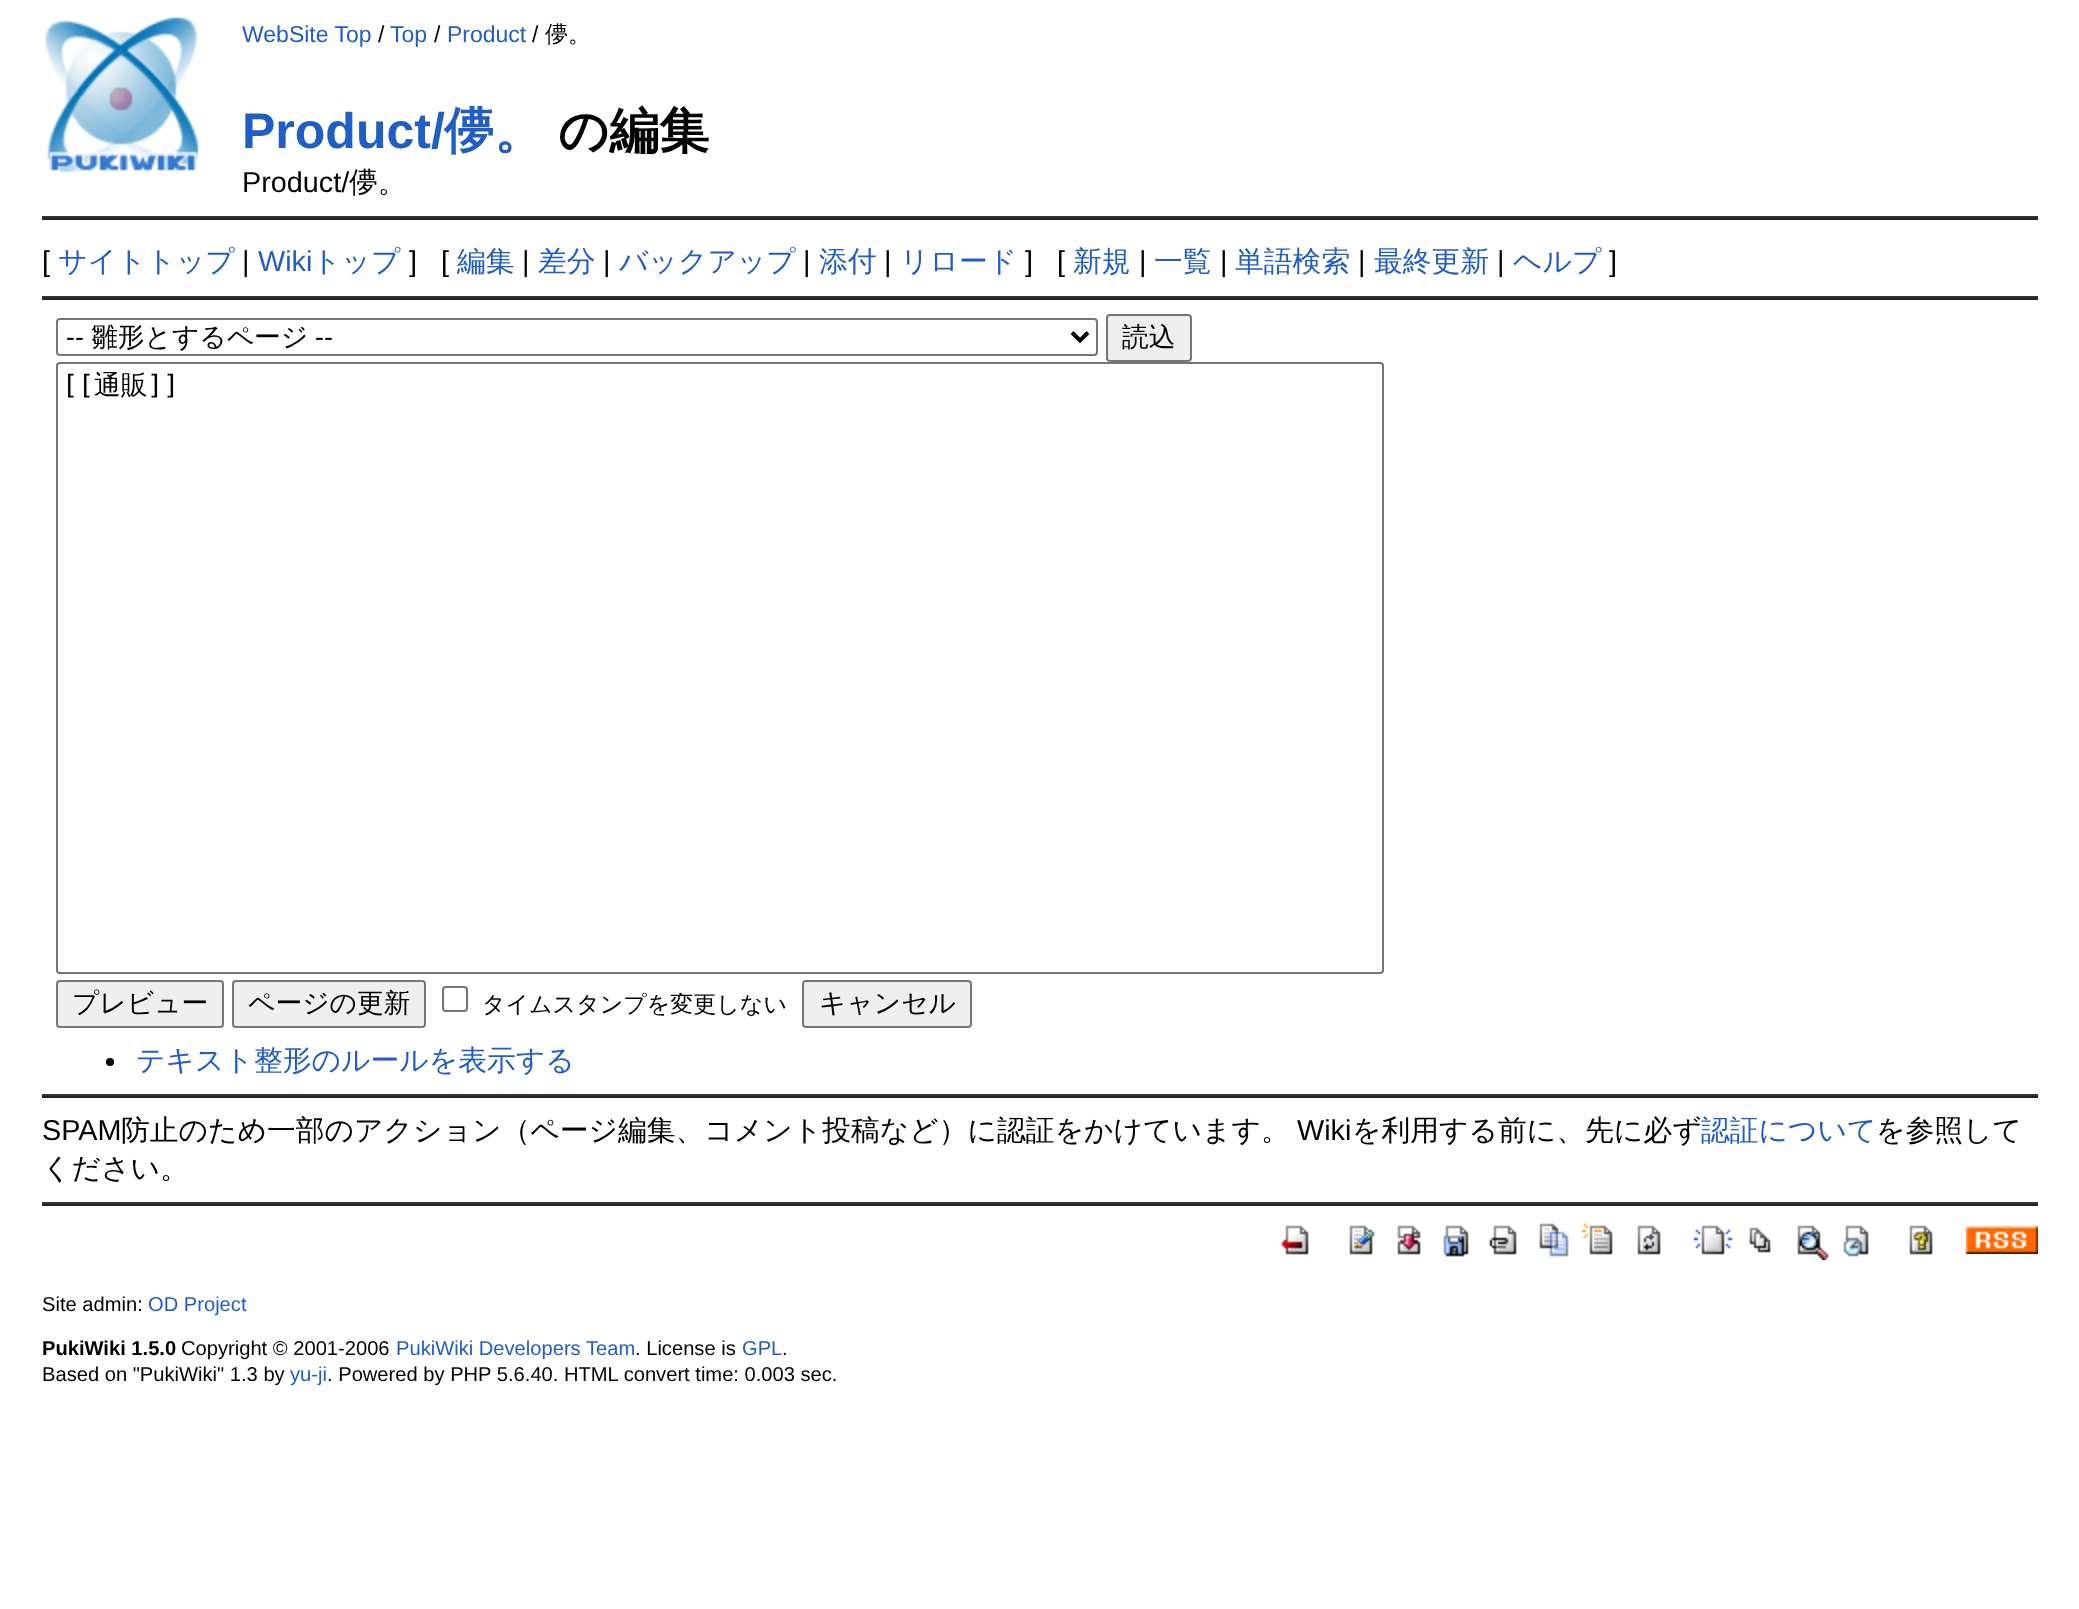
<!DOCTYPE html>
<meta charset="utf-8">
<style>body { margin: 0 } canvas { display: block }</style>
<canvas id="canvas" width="2079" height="1609"></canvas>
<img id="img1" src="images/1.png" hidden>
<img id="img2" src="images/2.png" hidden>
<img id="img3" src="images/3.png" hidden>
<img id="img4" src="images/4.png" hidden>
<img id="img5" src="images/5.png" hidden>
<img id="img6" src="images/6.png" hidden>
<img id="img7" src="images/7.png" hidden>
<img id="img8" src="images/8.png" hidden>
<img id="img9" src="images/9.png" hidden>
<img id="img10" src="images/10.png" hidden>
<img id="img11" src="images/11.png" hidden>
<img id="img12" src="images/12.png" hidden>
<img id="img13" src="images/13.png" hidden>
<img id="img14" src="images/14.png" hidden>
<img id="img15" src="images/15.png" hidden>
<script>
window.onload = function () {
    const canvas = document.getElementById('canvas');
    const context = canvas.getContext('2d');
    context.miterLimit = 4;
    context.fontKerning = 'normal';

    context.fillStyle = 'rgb(255, 255, 255)';
    context.fillRect(0, 0, 2079, 1609);
    context.drawImage(document.getElementById('img1'), 45, 17, 154, 156);
    context.fillStyle = 'rgb(51, 51, 51)';
    context.fillRect(42, 216, 1996, 2);
    context.fillStyle = 'rgb(34, 34, 34)';
    context.fillRect(42, 218, 1996, 2);
    context.fillStyle = 'rgb(51, 51, 51)';
    context.fillRect(42, 296, 1996, 2);
    context.fillStyle = 'rgb(34, 34, 34)';
    context.fillRect(42, 298, 1996, 2);
    context.beginPath();
    context.roundRect(57, 319, 1040, 36, 3);
    context.strokeStyle = 'rgb(118, 118, 118)';
    context.lineWidth = 2;
    context.stroke();
    context.beginPath();
    context.moveTo(1072, 332.5);
    context.lineTo(1080, 340.5);
    context.lineTo(1088, 332.5);
    context.strokeStyle = 'rgb(0, 0, 0)';
    context.lineWidth = 4;
    context.stroke();
    context.fillStyle = 'rgb(239, 239, 239)';
    context.beginPath();
    context.roundRect(1107, 315, 84, 46, 3);
    context.fill();
    context.strokeStyle = 'rgb(118, 118, 118)';
    context.lineWidth = 2;
    context.stroke();
    context.beginPath();
    context.roundRect(57, 363, 1326, 610, 3);
    context.stroke();
    context.beginPath();
    context.roundRect(57, 981, 166, 46, 3);
    context.fill();
    context.stroke();
    context.beginPath();
    context.roundRect(233, 981, 192, 46, 3);
    context.fill();
    context.stroke();
    context.beginPath();
    context.roundRect(443, 987, 24, 24, 3);
    context.stroke();
    context.beginPath();
    context.roundRect(803, 981, 168, 46, 3);
    context.fill();
    context.stroke();
    context.fillStyle = 'rgb(0, 0, 0)';
    context.beginPath();
    context.arc(110, 1062, 4, 0, 2 * Math.PI);
    context.fill();
    context.fillStyle = 'rgb(51, 51, 51)';
    context.fillRect(42, 1094, 1996, 2);
    context.fillStyle = 'rgb(34, 34, 34)';
    context.fillRect(42, 1096, 1996, 2);
    context.fillStyle = 'rgb(51, 51, 51)';
    context.fillRect(42, 1202, 1996, 2);
    context.fillStyle = 'rgb(34, 34, 34)';
    context.fillRect(42, 1204, 1996, 2);
    context.drawImage(document.getElementById('img2'), 1281, 1225, 28, 30);
    context.drawImage(document.getElementById('img3'), 1349, 1225, 26, 30);
    context.drawImage(document.getElementById('img4'), 1397, 1225, 24, 30);
    context.drawImage(document.getElementById('img5'), 1443, 1225, 26, 32);
    context.drawImage(document.getElementById('img6'), 1489, 1225, 28, 30);
    context.drawImage(document.getElementById('img7'), 1539, 1223, 30, 34);
    context.drawImage(document.getElementById('img8'), 1582, 1223, 31, 32);
    context.drawImage(document.getElementById('img9'), 1637, 1225, 24, 30);
    context.drawImage(document.getElementById('img10'), 1694, 1225, 39, 30);
    context.drawImage(document.getElementById('img11'), 1749, 1227, 22, 26);
    context.drawImage(document.getElementById('img12'), 1797, 1225, 32, 35);
    context.drawImage(document.getElementById('img13'), 1843, 1225, 26, 32);
    context.drawImage(document.getElementById('img14'), 1909, 1225, 24, 30);
    context.drawImage(document.getElementById('img15'), 1966, 1226, 72, 28);
    context.font = '23px Liberation Sans';
    context.fillStyle = 'rgb(33, 93, 198)';
    context.fillText('WebSite Top', 242, 42);
    context.fillStyle = 'rgb(0, 0, 0)';
    context.fillText('/', 378, 42);
    context.fillStyle = 'rgb(33, 93, 198)';
    context.fillText('Top', 390, 42);
    context.fillStyle = 'rgb(0, 0, 0)';
    context.fillText('/', 434, 42);
    context.fillStyle = 'rgb(33, 93, 198)';
    context.fillText('Product', 447, 42);
    context.fillStyle = 'rgb(0, 0, 0)';
    context.fillText('/', 532, 42);
    context.font = '500 23px WenQuanYi Zen Hei';
    context.fillText('儚。', 545, 42);
    context.font = 'bold 50px Liberation Sans';
    context.fillStyle = 'rgb(33, 93, 198)';
    context.fillText('Product/', 242, 148);
    context.font = 'bold 50px WenQuanYi Zen Hei';
    context.fillText('儚。', 444, 148);
    context.fillStyle = 'rgb(0, 0, 0)';
    context.fillText('の編集', 558, 148);
    context.font = '28.8px Liberation Sans';
    context.fillText('Product/', 242, 192);
    context.font = '500 28.8px WenQuanYi Zen Hei';
    context.fillText('儚。', 349, 192);
    context.font = '28.8px Liberation Sans';
    context.fillText('[', 42, 271);
    context.font = '500 28.8px WenQuanYi Zen Hei';
    context.fillStyle = 'rgb(33, 93, 198)';
    context.fillText('サイトトップ', 58, 271);
    context.font = '28.8px Liberation Sans';
    context.fillStyle = 'rgb(0, 0, 0)';
    context.fillText('|', 242, 271);
    context.fillStyle = 'rgb(33, 93, 198)';
    context.fillText('Wiki', 258, 271);
    context.font = '500 28.8px WenQuanYi Zen Hei';
    context.fillText('トップ', 312, 271);
    context.font = '28.8px Liberation Sans';
    context.fillStyle = 'rgb(0, 0, 0)';
    context.fillText(']', 409, 271);
    context.fillText('[', 441, 271);
    context.font = '500 28.8px WenQuanYi Zen Hei';
    context.fillStyle = 'rgb(33, 93, 198)';
    context.fillText('編集', 457, 271);
    context.font = '28.8px Liberation Sans';
    context.fillStyle = 'rgb(0, 0, 0)';
    context.fillText('|', 522, 271);
    context.font = '500 28.8px WenQuanYi Zen Hei';
    context.fillStyle = 'rgb(33, 93, 198)';
    context.fillText('差分', 538, 271);
    context.font = '28.8px Liberation Sans';
    context.fillStyle = 'rgb(0, 0, 0)';
    context.fillText('|', 603, 271);
    context.font = '500 28.8px WenQuanYi Zen Hei';
    context.fillStyle = 'rgb(33, 93, 198)';
    context.fillText('バックアップ', 619, 271);
    context.font = '28.8px Liberation Sans';
    context.fillStyle = 'rgb(0, 0, 0)';
    context.fillText('|', 803, 271);
    context.font = '500 28.8px WenQuanYi Zen Hei';
    context.fillStyle = 'rgb(33, 93, 198)';
    context.fillText('添付', 819, 271);
    context.font = '28.8px Liberation Sans';
    context.fillStyle = 'rgb(0, 0, 0)';
    context.fillText('|', 884, 271);
    context.font = '500 28.8px WenQuanYi Zen Hei';
    context.fillStyle = 'rgb(33, 93, 198)';
    context.fillText('リロード', 900, 271);
    context.font = '28.8px Liberation Sans';
    context.fillStyle = 'rgb(0, 0, 0)';
    context.fillText(']', 1025, 271);
    context.fillText('[', 1057, 271);
    context.font = '500 28.8px WenQuanYi Zen Hei';
    context.fillStyle = 'rgb(33, 93, 198)';
    context.fillText('新規', 1073, 271);
    context.font = '28.8px Liberation Sans';
    context.fillStyle = 'rgb(0, 0, 0)';
    context.fillText('|', 1139, 271);
    context.font = '500 28.8px WenQuanYi Zen Hei';
    context.fillStyle = 'rgb(33, 93, 198)';
    context.fillText('一覧', 1154, 271);
    context.font = '28.8px Liberation Sans';
    context.fillStyle = 'rgb(0, 0, 0)';
    context.fillText('|', 1220, 271);
    context.font = '500 28.8px WenQuanYi Zen Hei';
    context.fillStyle = 'rgb(33, 93, 198)';
    context.fillText('単語検索', 1235, 271);
    context.font = '28.8px Liberation Sans';
    context.fillStyle = 'rgb(0, 0, 0)';
    context.fillText('|', 1358, 271);
    context.font = '500 28.8px WenQuanYi Zen Hei';
    context.fillStyle = 'rgb(33, 93, 198)';
    context.fillText('最終更新', 1374, 271);
    context.font = '28.8px Liberation Sans';
    context.fillStyle = 'rgb(0, 0, 0)';
    context.fillText('|', 1497, 271);
    context.font = '500 28.8px WenQuanYi Zen Hei';
    context.fillStyle = 'rgb(33, 93, 198)';
    context.fillText('ヘルプ', 1513, 271);
    context.font = '28.8px Liberation Sans';
    context.fillStyle = 'rgb(0, 0, 0)';
    context.fillText(']', 1609, 271);
    context.font = '26.75px Liberation Sans';
    context.fillText('--', 66, 346);
    context.font = '500 26.75px WenQuanYi Zen Hei';
    context.fillText('雛形とするページ', 91, 346);
    context.font = '26.75px Liberation Sans';
    context.fillText('--', 315, 346);
    context.font = '500 26.75px WenQuanYi Zen Hei';
    context.fillText('読込', 1122, 346);
    context.font = '26.75px DejaVu Sans Mono';
    context.fillText('[[', 62, 394);
    context.font = '500 26.75px WenQuanYi Zen Hei';
    context.fillText('通販', 94, 394);
    context.font = '26.75px DejaVu Sans Mono';
    context.fillText(']]', 147, 394);
    context.font = '500 26.75px WenQuanYi Zen Hei';
    context.fillText('プレビュー', 72, 1012);
    context.fillText('ページの更新', 248, 1012);
    context.font = '500 23px WenQuanYi Zen Hei';
    context.fillText('タイムスタンプを変更しない', 482, 1012);
    context.font = '500 26.75px WenQuanYi Zen Hei';
    context.fillText('キャンセル', 819, 1012);
    context.font = '500 28.8px WenQuanYi Zen Hei';
    context.fillStyle = 'rgb(33, 93, 198)';
    context.fillText('テキスト整形のルールを表示する', 136, 1070);
    context.font = '28.8px Liberation Sans';
    context.fillStyle = 'rgb(0, 0, 0)';
    context.fillText('SPAM', 42, 1140);
    context.font = '500 28.8px WenQuanYi Zen Hei';
    context.fillText('防止のため一部のアクション（ページ編集、コメント投稿など）に認証をかけています。', 121, 1140);
    context.font = '28.8px Liberation Sans';
    context.fillText('Wiki', 1297, 1140);
    context.font = '500 28.8px WenQuanYi Zen Hei';
    context.fillText('を利用する前に、先に必ず', 1352, 1140);
    context.fillStyle = 'rgb(33, 93, 198)';
    context.fillText('認証について', 1701, 1140);
    context.fillStyle = 'rgb(0, 0, 0)';
    context.fillText('を参照して', 1876, 1140);
    context.fillText('ください。', 42, 1178);
    context.font = '20.15px Liberation Sans';
    context.fillText('Site admin:', 42, 1311);
    context.fillStyle = 'rgb(33, 93, 198)';
    context.fillText('OD Project', 148, 1311);
    context.font = 'bold 20.15px Liberation Sans';
    context.fillStyle = 'rgb(0, 0, 0)';
    context.fillText('PukiWiki 1.5.0', 42, 1355);
    context.font = '20.15px Liberation Sans';
    context.fillText('Copyright © 2001-2006', 181, 1355);
    context.fillStyle = 'rgb(33, 93, 198)';
    context.fillText('PukiWiki Developers Team', 396, 1355);
    context.fillStyle = 'rgb(0, 0, 0)';
    context.fillText('. License is', 635, 1355);
    context.fillStyle = 'rgb(33, 93, 198)';
    context.fillText('GPL', 742, 1355);
    context.fillStyle = 'rgb(0, 0, 0)';
    context.fillText('.', 782, 1355);
    context.fillText('Based on "PukiWiki" 1.3 by', 42, 1381);
    context.fillStyle = 'rgb(33, 93, 198)';
    context.fillText('yu-ji', 290, 1381);
    context.fillStyle = 'rgb(0, 0, 0)';
    context.fillText('. Powered by PHP 5.6.40. HTML convert time: 0.003 sec.', 327, 1381);
};
</script>
